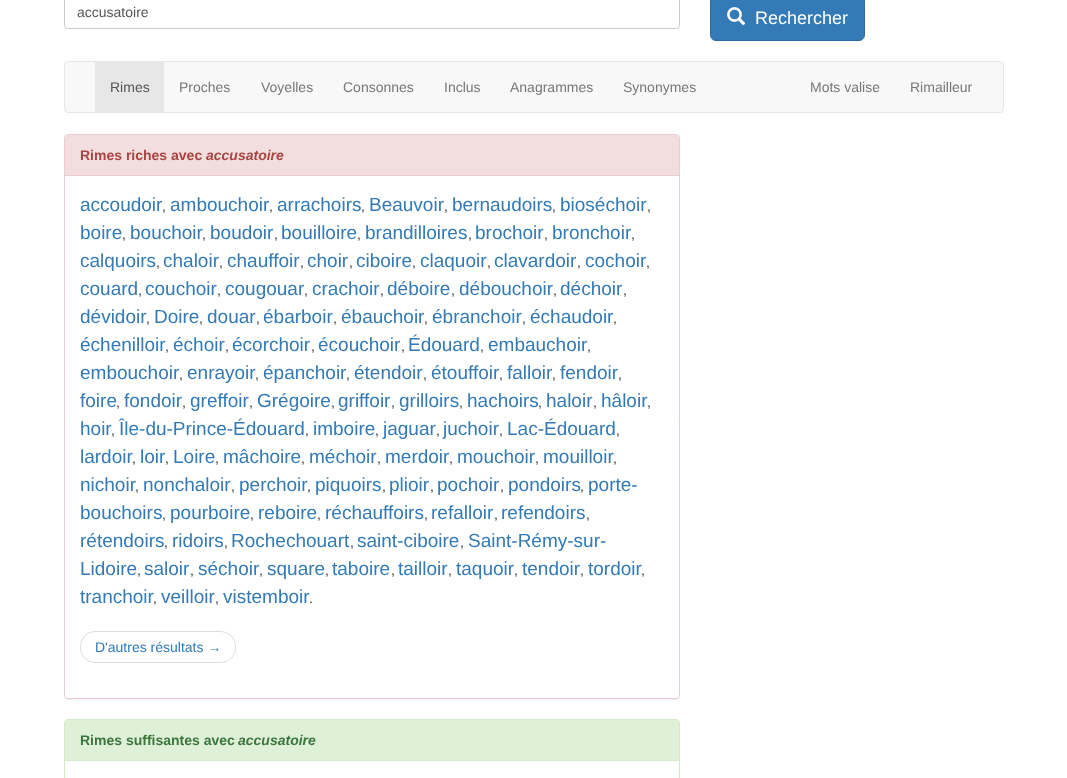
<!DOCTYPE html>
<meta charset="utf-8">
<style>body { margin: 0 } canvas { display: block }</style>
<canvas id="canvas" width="1067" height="778"></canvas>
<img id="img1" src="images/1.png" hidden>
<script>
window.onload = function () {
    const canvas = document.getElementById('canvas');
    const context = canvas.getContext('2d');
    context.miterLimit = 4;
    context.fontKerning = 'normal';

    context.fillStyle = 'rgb(255, 255, 255)';
    context.fillRect(0, 0, 1067, 778);
    context.beginPath();
    context.roundRect(64.5, -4.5, 615, 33, 3.5);
    context.strokeStyle = 'rgb(204, 204, 204)';
    context.stroke();
    context.fillStyle = 'rgb(51, 122, 183)';
    context.beginPath();
    context.roundRect(710.5, -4.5, 154, 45, 5.5);
    context.fill();
    context.strokeStyle = 'rgb(46, 109, 164)';
    context.stroke();
    context.drawImage(document.getElementById('img1'), 727, 7, 19, 19);
    context.fillStyle = 'rgb(248, 248, 248)';
    context.beginPath();
    context.roundRect(64.5, 61.5, 939, 51, 3.5);
    context.fill();
    context.strokeStyle = 'rgb(231, 231, 231)';
    context.stroke();
    context.fillStyle = 'rgb(231, 231, 231)';
    context.fillRect(95, 62, 69, 50);
    context.fillStyle = 'rgba(0, 0, 0, 0.05)';
    context.filter = 'blur(0.5px)';
    context.beginPath();
    context.roundRect(64, 135, 616, 565, 4);
    context.fill();
    context.filter = 'none';
    context.fillStyle = 'rgb(255, 255, 255)';
    context.beginPath();
    context.roundRect(64.5, 134.5, 615, 564, 3.5);
    context.fill();
    context.strokeStyle = 'rgb(235, 204, 209)';
    context.stroke();
    context.fillStyle = 'rgb(242, 222, 222)';
    context.beginPath();
    context.roundRect(65, 135, 614, 41, [3, 3, 0, 0]);
    context.fill();
    context.fillStyle = 'rgb(235, 204, 209)';
    context.fillRect(65, 175, 614, 1);
    context.beginPath();
    context.roundRect(80.5, 631.5, 155, 31, 14.5);
    context.strokeStyle = 'rgb(221, 221, 221)';
    context.stroke();
    context.beginPath();
    context.roundRect(64.5, 719.5, 615, 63, 3.5);
    context.strokeStyle = 'rgb(214, 233, 198)';
    context.stroke();
    context.fillStyle = 'rgb(223, 240, 216)';
    context.beginPath();
    context.roundRect(65, 720, 614, 41, [3, 3, 0, 0]);
    context.fill();
    context.fillStyle = 'rgb(214, 233, 198)';
    context.fillRect(65, 760, 614, 1);
    context.font = '14px Liberation Sans';
    context.fillStyle = 'rgb(85, 85, 85)';
    context.fillText('accusatoire', 77, 17);
    context.font = '18px Liberation Sans';
    context.fillStyle = 'rgb(255, 255, 255)';
    context.fillText('Rechercher', 755, 24);
    context.font = '14px Liberation Sans';
    context.fillStyle = 'rgb(85, 85, 85)';
    context.fillText('Rimes', 110, 92);
    context.fillStyle = 'rgb(119, 119, 119)';
    context.fillText('Proches', 179, 92);
    context.fillText('Voyelles', 261, 92);
    context.fillText('Consonnes', 343, 92);
    context.fillText('Inclus', 444, 92);
    context.fillText('Anagrammes', 510, 92);
    context.fillText('Synonymes', 623, 92);
    context.fillText('Mots valise', 810, 92);
    context.fillText('Rimailleur', 910, 92);
    context.font = 'bold 14px Liberation Sans';
    context.fillStyle = 'rgb(169, 68, 66)';
    context.fillText('Rimes riches avec', 80, 160);
    context.font = 'italic bold 14px Liberation Sans';
    context.fillText('accusatoire', 206, 160);
    context.font = '19px Liberation Sans';
    context.fillStyle = 'rgb(51, 122, 183)';
    context.fillText('accoudoir', 80, 211);
    context.font = '14px Liberation Sans';
    context.fillStyle = 'rgb(51, 51, 51)';
    context.fillText(',', 162, 211);
    context.font = '19px Liberation Sans';
    context.fillStyle = 'rgb(51, 122, 183)';
    context.fillText('ambouchoir', 170, 211);
    context.font = '14px Liberation Sans';
    context.fillStyle = 'rgb(51, 51, 51)';
    context.fillText(',', 269, 211);
    context.font = '19px Liberation Sans';
    context.fillStyle = 'rgb(51, 122, 183)';
    context.fillText('arrachoirs', 277, 211);
    context.font = '14px Liberation Sans';
    context.fillStyle = 'rgb(51, 51, 51)';
    context.fillText(',', 361, 211);
    context.font = '19px Liberation Sans';
    context.fillStyle = 'rgb(51, 122, 183)';
    context.fillText('Beauvoir', 369, 211);
    context.font = '14px Liberation Sans';
    context.fillStyle = 'rgb(51, 51, 51)';
    context.fillText(',', 444, 211);
    context.font = '19px Liberation Sans';
    context.fillStyle = 'rgb(51, 122, 183)';
    context.fillText('bernaudoirs', 452, 211);
    context.font = '14px Liberation Sans';
    context.fillStyle = 'rgb(51, 51, 51)';
    context.fillText(',', 552, 211);
    context.font = '19px Liberation Sans';
    context.fillStyle = 'rgb(51, 122, 183)';
    context.fillText('bioséchoir', 560, 211);
    context.font = '14px Liberation Sans';
    context.fillStyle = 'rgb(51, 51, 51)';
    context.fillText(',', 647, 211);
    context.font = '19px Liberation Sans';
    context.fillStyle = 'rgb(51, 122, 183)';
    context.fillText('boire', 80, 239);
    context.font = '14px Liberation Sans';
    context.fillStyle = 'rgb(51, 51, 51)';
    context.fillText(',', 122, 239);
    context.font = '19px Liberation Sans';
    context.fillStyle = 'rgb(51, 122, 183)';
    context.fillText('bouchoir', 130, 239);
    context.font = '14px Liberation Sans';
    context.fillStyle = 'rgb(51, 51, 51)';
    context.fillText(',', 202, 239);
    context.font = '19px Liberation Sans';
    context.fillStyle = 'rgb(51, 122, 183)';
    context.fillText('boudoir', 210, 239);
    context.font = '14px Liberation Sans';
    context.fillStyle = 'rgb(51, 51, 51)';
    context.fillText(',', 274, 239);
    context.font = '19px Liberation Sans';
    context.fillStyle = 'rgb(51, 122, 183)';
    context.fillText('bouilloire', 281, 239);
    context.font = '14px Liberation Sans';
    context.fillStyle = 'rgb(51, 51, 51)';
    context.fillText(',', 357, 239);
    context.font = '19px Liberation Sans';
    context.fillStyle = 'rgb(51, 122, 183)';
    context.fillText('brandilloires', 365, 239);
    context.font = '14px Liberation Sans';
    context.fillStyle = 'rgb(51, 51, 51)';
    context.fillText(',', 468, 239);
    context.font = '19px Liberation Sans';
    context.fillStyle = 'rgb(51, 122, 183)';
    context.fillText('brochoir', 475, 239);
    context.font = '14px Liberation Sans';
    context.fillStyle = 'rgb(51, 51, 51)';
    context.fillText(',', 544, 239);
    context.font = '19px Liberation Sans';
    context.fillStyle = 'rgb(51, 122, 183)';
    context.fillText('bronchoir', 552, 239);
    context.font = '14px Liberation Sans';
    context.fillStyle = 'rgb(51, 51, 51)';
    context.fillText(',', 631, 239);
    context.font = '19px Liberation Sans';
    context.fillStyle = 'rgb(51, 122, 183)';
    context.fillText('calquoirs', 80, 267);
    context.font = '14px Liberation Sans';
    context.fillStyle = 'rgb(51, 51, 51)';
    context.fillText(',', 156, 267);
    context.font = '19px Liberation Sans';
    context.fillStyle = 'rgb(51, 122, 183)';
    context.fillText('chaloir', 163, 267);
    context.font = '14px Liberation Sans';
    context.fillStyle = 'rgb(51, 51, 51)';
    context.fillText(',', 219, 267);
    context.font = '19px Liberation Sans';
    context.fillStyle = 'rgb(51, 122, 183)';
    context.fillText('chauffoir', 227, 267);
    context.font = '14px Liberation Sans';
    context.fillStyle = 'rgb(51, 51, 51)';
    context.fillText(',', 300, 267);
    context.font = '19px Liberation Sans';
    context.fillStyle = 'rgb(51, 122, 183)';
    context.fillText('choir', 307, 267);
    context.font = '14px Liberation Sans';
    context.fillStyle = 'rgb(51, 51, 51)';
    context.fillText(',', 349, 267);
    context.font = '19px Liberation Sans';
    context.fillStyle = 'rgb(51, 122, 183)';
    context.fillText('ciboire', 356, 267);
    context.font = '14px Liberation Sans';
    context.fillStyle = 'rgb(51, 51, 51)';
    context.fillText(',', 412, 267);
    context.font = '19px Liberation Sans';
    context.fillStyle = 'rgb(51, 122, 183)';
    context.fillText('claquoir', 420, 267);
    context.font = '14px Liberation Sans';
    context.fillStyle = 'rgb(51, 51, 51)';
    context.fillText(',', 487, 267);
    context.font = '19px Liberation Sans';
    context.fillStyle = 'rgb(51, 122, 183)';
    context.fillText('clavardoir', 494, 267);
    context.font = '14px Liberation Sans';
    context.fillStyle = 'rgb(51, 51, 51)';
    context.fillText(',', 577, 267);
    context.font = '19px Liberation Sans';
    context.fillStyle = 'rgb(51, 122, 183)';
    context.fillText('cochoir', 585, 267);
    context.font = '14px Liberation Sans';
    context.fillStyle = 'rgb(51, 51, 51)';
    context.fillText(',', 646, 267);
    context.font = '19px Liberation Sans';
    context.fillStyle = 'rgb(51, 122, 183)';
    context.fillText('couard', 80, 295);
    context.font = '14px Liberation Sans';
    context.fillStyle = 'rgb(51, 51, 51)';
    context.fillText(',', 138, 295);
    context.font = '19px Liberation Sans';
    context.fillStyle = 'rgb(51, 122, 183)';
    context.fillText('couchoir', 145, 295);
    context.font = '14px Liberation Sans';
    context.fillStyle = 'rgb(51, 51, 51)';
    context.fillText(',', 217, 295);
    context.font = '19px Liberation Sans';
    context.fillStyle = 'rgb(51, 122, 183)';
    context.fillText('cougouar', 225, 295);
    context.font = '14px Liberation Sans';
    context.fillStyle = 'rgb(51, 51, 51)';
    context.fillText(',', 304, 295);
    context.font = '19px Liberation Sans';
    context.fillStyle = 'rgb(51, 122, 183)';
    context.fillText('crachoir', 312, 295);
    context.font = '14px Liberation Sans';
    context.fillStyle = 'rgb(51, 51, 51)';
    context.fillText(',', 380, 295);
    context.font = '19px Liberation Sans';
    context.fillStyle = 'rgb(51, 122, 183)';
    context.fillText('déboire', 387, 295);
    context.font = '14px Liberation Sans';
    context.fillStyle = 'rgb(51, 51, 51)';
    context.fillText(',', 451, 295);
    context.font = '19px Liberation Sans';
    context.fillStyle = 'rgb(51, 122, 183)';
    context.fillText('débouchoir', 459, 295);
    context.font = '14px Liberation Sans';
    context.fillStyle = 'rgb(51, 51, 51)';
    context.fillText(',', 553, 295);
    context.font = '19px Liberation Sans';
    context.fillStyle = 'rgb(51, 122, 183)';
    context.fillText('déchoir', 560, 295);
    context.font = '14px Liberation Sans';
    context.fillStyle = 'rgb(51, 51, 51)';
    context.fillText(',', 623, 295);
    context.font = '19px Liberation Sans';
    context.fillStyle = 'rgb(51, 122, 183)';
    context.fillText('dévidoir', 80, 323);
    context.font = '14px Liberation Sans';
    context.fillStyle = 'rgb(51, 51, 51)';
    context.fillText(',', 146, 323);
    context.font = '19px Liberation Sans';
    context.fillStyle = 'rgb(51, 122, 183)';
    context.fillText('Doire', 154, 323);
    context.font = '14px Liberation Sans';
    context.fillStyle = 'rgb(51, 51, 51)';
    context.fillText(',', 199, 323);
    context.font = '19px Liberation Sans';
    context.fillStyle = 'rgb(51, 122, 183)';
    context.fillText('douar', 207, 323);
    context.font = '14px Liberation Sans';
    context.fillStyle = 'rgb(51, 51, 51)';
    context.fillText(',', 256, 323);
    context.font = '19px Liberation Sans';
    context.fillStyle = 'rgb(51, 122, 183)';
    context.fillText('ébarboir', 263, 323);
    context.font = '14px Liberation Sans';
    context.fillStyle = 'rgb(51, 51, 51)';
    context.fillText(',', 333, 323);
    context.font = '19px Liberation Sans';
    context.fillStyle = 'rgb(51, 122, 183)';
    context.fillText('ébauchoir', 341, 323);
    context.font = '14px Liberation Sans';
    context.fillStyle = 'rgb(51, 51, 51)';
    context.fillText(',', 424, 323);
    context.font = '19px Liberation Sans';
    context.fillStyle = 'rgb(51, 122, 183)';
    context.fillText('ébranchoir', 432, 323);
    context.font = '14px Liberation Sans';
    context.fillStyle = 'rgb(51, 51, 51)';
    context.fillText(',', 522, 323);
    context.font = '19px Liberation Sans';
    context.fillStyle = 'rgb(51, 122, 183)';
    context.fillText('échaudoir', 530, 323);
    context.font = '14px Liberation Sans';
    context.fillStyle = 'rgb(51, 51, 51)';
    context.fillText(',', 613, 323);
    context.font = '19px Liberation Sans';
    context.fillStyle = 'rgb(51, 122, 183)';
    context.fillText('échenilloir', 80, 351);
    context.font = '14px Liberation Sans';
    context.fillStyle = 'rgb(51, 51, 51)';
    context.fillText(',', 165, 351);
    context.font = '19px Liberation Sans';
    context.fillStyle = 'rgb(51, 122, 183)';
    context.fillText('échoir', 173, 351);
    context.font = '14px Liberation Sans';
    context.fillStyle = 'rgb(51, 51, 51)';
    context.fillText(',', 225, 351);
    context.font = '19px Liberation Sans';
    context.fillStyle = 'rgb(51, 122, 183)';
    context.fillText('écorchoir', 232, 351);
    context.font = '14px Liberation Sans';
    context.fillStyle = 'rgb(51, 51, 51)';
    context.fillText(',', 311, 351);
    context.font = '19px Liberation Sans';
    context.fillStyle = 'rgb(51, 122, 183)';
    context.fillText('écouchoir', 318, 351);
    context.font = '14px Liberation Sans';
    context.fillStyle = 'rgb(51, 51, 51)';
    context.fillText(',', 401, 351);
    context.font = '19px Liberation Sans';
    context.fillStyle = 'rgb(51, 122, 183)';
    context.fillText('Édouard', 408, 351);
    context.font = '14px Liberation Sans';
    context.fillStyle = 'rgb(51, 51, 51)';
    context.fillText(',', 480, 351);
    context.font = '19px Liberation Sans';
    context.fillStyle = 'rgb(51, 122, 183)';
    context.fillText('embauchoir', 488, 351);
    context.font = '14px Liberation Sans';
    context.fillStyle = 'rgb(51, 51, 51)';
    context.fillText(',', 587, 351);
    context.font = '19px Liberation Sans';
    context.fillStyle = 'rgb(51, 122, 183)';
    context.fillText('embouchoir', 80, 379);
    context.font = '14px Liberation Sans';
    context.fillStyle = 'rgb(51, 51, 51)';
    context.fillText(',', 179, 379);
    context.font = '19px Liberation Sans';
    context.fillStyle = 'rgb(51, 122, 183)';
    context.fillText('enrayoir', 187, 379);
    context.font = '14px Liberation Sans';
    context.fillStyle = 'rgb(51, 51, 51)';
    context.fillText(',', 255, 379);
    context.font = '19px Liberation Sans';
    context.fillStyle = 'rgb(51, 122, 183)';
    context.fillText('épanchoir', 263, 379);
    context.font = '14px Liberation Sans';
    context.fillStyle = 'rgb(51, 51, 51)';
    context.fillText(',', 346, 379);
    context.font = '19px Liberation Sans';
    context.fillStyle = 'rgb(51, 122, 183)';
    context.fillText('étendoir', 354, 379);
    context.font = '14px Liberation Sans';
    context.fillStyle = 'rgb(51, 51, 51)';
    context.fillText(',', 423, 379);
    context.font = '19px Liberation Sans';
    context.fillStyle = 'rgb(51, 122, 183)';
    context.fillText('étouffoir', 431, 379);
    context.font = '14px Liberation Sans';
    context.fillStyle = 'rgb(51, 51, 51)';
    context.fillText(',', 499, 379);
    context.font = '19px Liberation Sans';
    context.fillStyle = 'rgb(51, 122, 183)';
    context.fillText('falloir', 507, 379);
    context.font = '14px Liberation Sans';
    context.fillStyle = 'rgb(51, 51, 51)';
    context.fillText(',', 552, 379);
    context.font = '19px Liberation Sans';
    context.fillStyle = 'rgb(51, 122, 183)';
    context.fillText('fendoir', 560, 379);
    context.font = '14px Liberation Sans';
    context.fillStyle = 'rgb(51, 51, 51)';
    context.fillText(',', 618, 379);
    context.font = '19px Liberation Sans';
    context.fillStyle = 'rgb(51, 122, 183)';
    context.fillText('foire', 80, 407);
    context.font = '14px Liberation Sans';
    context.fillStyle = 'rgb(51, 51, 51)';
    context.fillText(',', 116, 407);
    context.font = '19px Liberation Sans';
    context.fillStyle = 'rgb(51, 122, 183)';
    context.fillText('fondoir', 124, 407);
    context.font = '14px Liberation Sans';
    context.fillStyle = 'rgb(51, 51, 51)';
    context.fillText(',', 182, 407);
    context.font = '19px Liberation Sans';
    context.fillStyle = 'rgb(51, 122, 183)';
    context.fillText('greffoir', 190, 407);
    context.font = '14px Liberation Sans';
    context.fillStyle = 'rgb(51, 51, 51)';
    context.fillText(',', 249, 407);
    context.font = '19px Liberation Sans';
    context.fillStyle = 'rgb(51, 122, 183)';
    context.fillText('Grégoire', 257, 407);
    context.font = '14px Liberation Sans';
    context.fillStyle = 'rgb(51, 51, 51)';
    context.fillText(',', 331, 407);
    context.font = '19px Liberation Sans';
    context.fillStyle = 'rgb(51, 122, 183)';
    context.fillText('griffoir', 338, 407);
    context.font = '14px Liberation Sans';
    context.fillStyle = 'rgb(51, 51, 51)';
    context.fillText(',', 391, 407);
    context.font = '19px Liberation Sans';
    context.fillStyle = 'rgb(51, 122, 183)';
    context.fillText('grilloirs', 399, 407);
    context.font = '14px Liberation Sans';
    context.fillStyle = 'rgb(51, 51, 51)';
    context.fillText(',', 459, 407);
    context.font = '19px Liberation Sans';
    context.fillStyle = 'rgb(51, 122, 183)';
    context.fillText('hachoirs', 467, 407);
    context.font = '14px Liberation Sans';
    context.fillStyle = 'rgb(51, 51, 51)';
    context.fillText(',', 538, 407);
    context.font = '19px Liberation Sans';
    context.fillStyle = 'rgb(51, 122, 183)';
    context.fillText('haloir', 546, 407);
    context.font = '14px Liberation Sans';
    context.fillStyle = 'rgb(51, 51, 51)';
    context.fillText(',', 593, 407);
    context.font = '19px Liberation Sans';
    context.fillStyle = 'rgb(51, 122, 183)';
    context.fillText('hâloir', 601, 407);
    context.font = '14px Liberation Sans';
    context.fillStyle = 'rgb(51, 51, 51)';
    context.fillText(',', 647, 407);
    context.font = '19px Liberation Sans';
    context.fillStyle = 'rgb(51, 122, 183)';
    context.fillText('hoir', 80, 435);
    context.font = '14px Liberation Sans';
    context.fillStyle = 'rgb(51, 51, 51)';
    context.fillText(',', 111, 435);
    context.font = '19px Liberation Sans';
    context.fillStyle = 'rgb(51, 122, 183)';
    context.fillText('Île-du-Prince-Édouard', 119, 435);
    context.font = '14px Liberation Sans';
    context.fillStyle = 'rgb(51, 51, 51)';
    context.fillText(',', 305, 435);
    context.font = '19px Liberation Sans';
    context.fillStyle = 'rgb(51, 122, 183)';
    context.fillText('imboire', 313, 435);
    context.font = '14px Liberation Sans';
    context.fillStyle = 'rgb(51, 51, 51)';
    context.fillText(',', 375, 435);
    context.font = '19px Liberation Sans';
    context.fillStyle = 'rgb(51, 122, 183)';
    context.fillText('jaguar', 383, 435);
    context.font = '14px Liberation Sans';
    context.fillStyle = 'rgb(51, 51, 51)';
    context.fillText(',', 436, 435);
    context.font = '19px Liberation Sans';
    context.fillStyle = 'rgb(51, 122, 183)';
    context.fillText('juchoir', 443, 435);
    context.font = '14px Liberation Sans';
    context.fillStyle = 'rgb(51, 51, 51)';
    context.fillText(',', 499, 435);
    context.font = '19px Liberation Sans';
    context.fillStyle = 'rgb(51, 122, 183)';
    context.fillText('Lac-Édouard', 507, 435);
    context.font = '14px Liberation Sans';
    context.fillStyle = 'rgb(51, 51, 51)';
    context.fillText(',', 616, 435);
    context.font = '19px Liberation Sans';
    context.fillStyle = 'rgb(51, 122, 183)';
    context.fillText('lardoir', 80, 463);
    context.font = '14px Liberation Sans';
    context.fillStyle = 'rgb(51, 51, 51)';
    context.fillText(',', 132, 463);
    context.font = '19px Liberation Sans';
    context.fillStyle = 'rgb(51, 122, 183)';
    context.fillText('loir', 140, 463);
    context.font = '14px Liberation Sans';
    context.fillStyle = 'rgb(51, 51, 51)';
    context.fillText(',', 165, 463);
    context.font = '19px Liberation Sans';
    context.fillStyle = 'rgb(51, 122, 183)';
    context.fillText('Loire', 173, 463);
    context.font = '14px Liberation Sans';
    context.fillStyle = 'rgb(51, 51, 51)';
    context.fillText(',', 215, 463);
    context.font = '19px Liberation Sans';
    context.fillStyle = 'rgb(51, 122, 183)';
    context.fillText('mâchoire', 223, 463);
    context.font = '14px Liberation Sans';
    context.fillStyle = 'rgb(51, 51, 51)';
    context.fillText(',', 301, 463);
    context.font = '19px Liberation Sans';
    context.fillStyle = 'rgb(51, 122, 183)';
    context.fillText('méchoir', 309, 463);
    context.font = '14px Liberation Sans';
    context.fillStyle = 'rgb(51, 51, 51)';
    context.fillText(',', 377, 463);
    context.font = '19px Liberation Sans';
    context.fillStyle = 'rgb(51, 122, 183)';
    context.fillText('merdoir', 385, 463);
    context.font = '14px Liberation Sans';
    context.fillStyle = 'rgb(51, 51, 51)';
    context.fillText(',', 449, 463);
    context.font = '19px Liberation Sans';
    context.fillStyle = 'rgb(51, 122, 183)';
    context.fillText('mouchoir', 457, 463);
    context.font = '14px Liberation Sans';
    context.fillStyle = 'rgb(51, 51, 51)';
    context.fillText(',', 535, 463);
    context.font = '19px Liberation Sans';
    context.fillStyle = 'rgb(51, 122, 183)';
    context.fillText('mouilloir', 543, 463);
    context.font = '14px Liberation Sans';
    context.fillStyle = 'rgb(51, 51, 51)';
    context.fillText(',', 613, 463);
    context.font = '19px Liberation Sans';
    context.fillStyle = 'rgb(51, 122, 183)';
    context.fillText('nichoir', 80, 491);
    context.font = '14px Liberation Sans';
    context.fillStyle = 'rgb(51, 51, 51)';
    context.fillText(',', 135, 491);
    context.font = '19px Liberation Sans';
    context.fillStyle = 'rgb(51, 122, 183)';
    context.fillText('nonchaloir', 143, 491);
    context.font = '14px Liberation Sans';
    context.fillStyle = 'rgb(51, 51, 51)';
    context.fillText(',', 231, 491);
    context.font = '19px Liberation Sans';
    context.fillStyle = 'rgb(51, 122, 183)';
    context.fillText('perchoir', 239, 491);
    context.font = '14px Liberation Sans';
    context.fillStyle = 'rgb(51, 51, 51)';
    context.fillText(',', 307, 491);
    context.font = '19px Liberation Sans';
    context.fillStyle = 'rgb(51, 122, 183)';
    context.fillText('piquoirs', 315, 491);
    context.font = '14px Liberation Sans';
    context.fillStyle = 'rgb(51, 51, 51)';
    context.fillText(',', 382, 491);
    context.font = '19px Liberation Sans';
    context.fillStyle = 'rgb(51, 122, 183)';
    context.fillText('plioir', 389, 491);
    context.font = '14px Liberation Sans';
    context.fillStyle = 'rgb(51, 51, 51)';
    context.fillText(',', 430, 491);
    context.font = '19px Liberation Sans';
    context.fillStyle = 'rgb(51, 122, 183)';
    context.fillText('pochoir', 437, 491);
    context.font = '14px Liberation Sans';
    context.fillStyle = 'rgb(51, 51, 51)';
    context.fillText(',', 500, 491);
    context.font = '19px Liberation Sans';
    context.fillStyle = 'rgb(51, 122, 183)';
    context.fillText('pondoirs', 508, 491);
    context.font = '14px Liberation Sans';
    context.fillStyle = 'rgb(51, 51, 51)';
    context.fillText(',', 580, 491);
    context.font = '19px Liberation Sans';
    context.fillStyle = 'rgb(51, 122, 183)';
    context.fillText('porte-', 588, 491);
    context.fillText('bouchoirs', 80, 519);
    context.font = '14px Liberation Sans';
    context.fillStyle = 'rgb(51, 51, 51)';
    context.fillText(',', 162, 519);
    context.font = '19px Liberation Sans';
    context.fillStyle = 'rgb(51, 122, 183)';
    context.fillText('pourboire', 170, 519);
    context.font = '14px Liberation Sans';
    context.fillStyle = 'rgb(51, 51, 51)';
    context.fillText(',', 250, 519);
    context.font = '19px Liberation Sans';
    context.fillStyle = 'rgb(51, 122, 183)';
    context.fillText('reboire', 258, 519);
    context.font = '14px Liberation Sans';
    context.fillStyle = 'rgb(51, 51, 51)';
    context.fillText(',', 317, 519);
    context.font = '19px Liberation Sans';
    context.fillStyle = 'rgb(51, 122, 183)';
    context.fillText('réchauffoirs', 325, 519);
    context.font = '14px Liberation Sans';
    context.fillStyle = 'rgb(51, 51, 51)';
    context.fillText(',', 424, 519);
    context.font = '19px Liberation Sans';
    context.fillStyle = 'rgb(51, 122, 183)';
    context.fillText('refalloir', 431, 519);
    context.font = '14px Liberation Sans';
    context.fillStyle = 'rgb(51, 51, 51)';
    context.fillText(',', 494, 519);
    context.font = '19px Liberation Sans';
    context.fillStyle = 'rgb(51, 122, 183)';
    context.fillText('refendoirs', 501, 519);
    context.font = '14px Liberation Sans';
    context.fillStyle = 'rgb(51, 51, 51)';
    context.fillText(',', 586, 519);
    context.font = '19px Liberation Sans';
    context.fillStyle = 'rgb(51, 122, 183)';
    context.fillText('rétendoirs', 80, 547);
    context.font = '14px Liberation Sans';
    context.fillStyle = 'rgb(51, 51, 51)';
    context.fillText(',', 164, 547);
    context.font = '19px Liberation Sans';
    context.fillStyle = 'rgb(51, 122, 183)';
    context.fillText('ridoirs', 172, 547);
    context.font = '14px Liberation Sans';
    context.fillStyle = 'rgb(51, 51, 51)';
    context.fillText(',', 224, 547);
    context.font = '19px Liberation Sans';
    context.fillStyle = 'rgb(51, 122, 183)';
    context.fillText('Rochechouart', 231, 547);
    context.font = '14px Liberation Sans';
    context.fillStyle = 'rgb(51, 51, 51)';
    context.fillText(',', 350, 547);
    context.font = '19px Liberation Sans';
    context.fillStyle = 'rgb(51, 122, 183)';
    context.fillText('saint-ciboire', 357, 547);
    context.font = '14px Liberation Sans';
    context.fillStyle = 'rgb(51, 51, 51)';
    context.fillText(',', 460, 547);
    context.font = '19px Liberation Sans';
    context.fillStyle = 'rgb(51, 122, 183)';
    context.fillText('Saint-Rémy-sur-', 468, 547);
    context.fillText('Lidoire', 80, 575);
    context.font = '14px Liberation Sans';
    context.fillStyle = 'rgb(51, 51, 51)';
    context.fillText(',', 137, 575);
    context.font = '19px Liberation Sans';
    context.fillStyle = 'rgb(51, 122, 183)';
    context.fillText('saloir', 144, 575);
    context.font = '14px Liberation Sans';
    context.fillStyle = 'rgb(51, 51, 51)';
    context.fillText(',', 190, 575);
    context.font = '19px Liberation Sans';
    context.fillStyle = 'rgb(51, 122, 183)';
    context.fillText('séchoir', 198, 575);
    context.font = '14px Liberation Sans';
    context.fillStyle = 'rgb(51, 51, 51)';
    context.fillText(',', 259, 575);
    context.font = '19px Liberation Sans';
    context.fillStyle = 'rgb(51, 122, 183)';
    context.fillText('square', 267, 575);
    context.font = '14px Liberation Sans';
    context.fillStyle = 'rgb(51, 51, 51)';
    context.fillText(',', 325, 575);
    context.font = '19px Liberation Sans';
    context.fillStyle = 'rgb(51, 122, 183)';
    context.fillText('taboire', 332, 575);
    context.font = '14px Liberation Sans';
    context.fillStyle = 'rgb(51, 51, 51)';
    context.fillText(',', 391, 575);
    context.font = '19px Liberation Sans';
    context.fillStyle = 'rgb(51, 122, 183)';
    context.fillText('tailloir', 398, 575);
    context.font = '14px Liberation Sans';
    context.fillStyle = 'rgb(51, 51, 51)';
    context.fillText(',', 448, 575);
    context.font = '19px Liberation Sans';
    context.fillStyle = 'rgb(51, 122, 183)';
    context.fillText('taquoir', 456, 575);
    context.font = '14px Liberation Sans';
    context.fillStyle = 'rgb(51, 51, 51)';
    context.fillText(',', 514, 575);
    context.font = '19px Liberation Sans';
    context.fillStyle = 'rgb(51, 122, 183)';
    context.fillText('tendoir', 522, 575);
    context.font = '14px Liberation Sans';
    context.fillStyle = 'rgb(51, 51, 51)';
    context.fillText(',', 580, 575);
    context.font = '19px Liberation Sans';
    context.fillStyle = 'rgb(51, 122, 183)';
    context.fillText('tordoir', 588, 575);
    context.font = '14px Liberation Sans';
    context.fillStyle = 'rgb(51, 51, 51)';
    context.fillText(',', 641, 575);
    context.font = '19px Liberation Sans';
    context.fillStyle = 'rgb(51, 122, 183)';
    context.fillText('tranchoir', 80, 603);
    context.font = '14px Liberation Sans';
    context.fillStyle = 'rgb(51, 51, 51)';
    context.fillText(',', 153, 603);
    context.font = '19px Liberation Sans';
    context.fillStyle = 'rgb(51, 122, 183)';
    context.fillText('veilloir', 161, 603);
    context.font = '14px Liberation Sans';
    context.fillStyle = 'rgb(51, 51, 51)';
    context.fillText(',', 215, 603);
    context.font = '19px Liberation Sans';
    context.fillStyle = 'rgb(51, 122, 183)';
    context.fillText('vistemboir', 223, 603);
    context.font = '14px Liberation Sans';
    context.fillStyle = 'rgb(51, 51, 51)';
    context.fillText('.', 309, 603);
    context.fillStyle = 'rgb(51, 122, 183)';
    context.fillText('D\'autres résultats →', 95, 652);
    context.font = 'bold 14px Liberation Sans';
    context.fillStyle = 'rgb(60, 118, 61)';
    context.fillText('Rimes suffisantes avec', 80, 745);
    context.font = 'italic bold 14px Liberation Sans';
    context.fillText('accusatoire', 238, 745);
};
</script>
